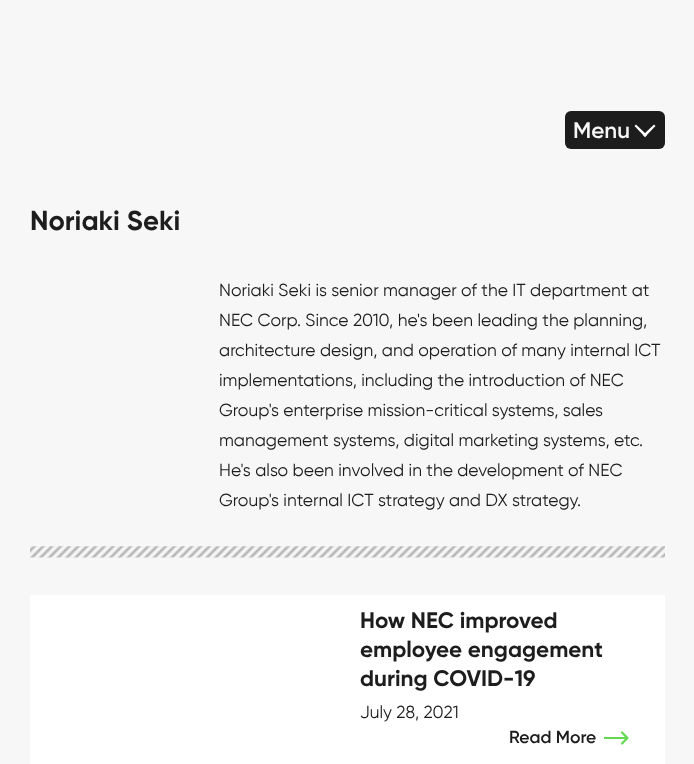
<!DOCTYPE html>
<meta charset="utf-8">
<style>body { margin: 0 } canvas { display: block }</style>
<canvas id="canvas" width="694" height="764"></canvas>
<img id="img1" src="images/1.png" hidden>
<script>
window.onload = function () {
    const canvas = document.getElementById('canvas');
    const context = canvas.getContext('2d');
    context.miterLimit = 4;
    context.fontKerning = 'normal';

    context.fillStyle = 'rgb(247, 247, 247)';
    context.fillRect(0, 0, 694, 764);
    context.fillStyle = 'rgb(29, 29, 29)';
    context.beginPath();
    context.roundRect(565, 111, 100, 38, 6);
    context.fill();
    context.fillStyle = 'rgb(255, 255, 255)';
    context.beginPath();
    context.moveTo(654, 124.5);
    context.lineTo(655.5, 126);
    context.lineTo(645, 137);
    context.lineTo(643, 135);
    context.closePath();
    context.fill();
    context.beginPath();
    context.moveTo(636, 124.5);
    context.lineTo(647, 135);
    context.lineTo(645, 137);
    context.lineTo(634.5, 126);
    context.closePath();
    context.fill();
    context.drawImage(document.getElementById('img1'), 30, 546, 635, 12);
    context.fillRect(30, 595, 635, 169);
    context.save();
    context.beginPath();
    context.rect(604, 731, 40, 13);
    context.clip();
    context.beginPath();
    context.moveTo(593, 738);
    context.lineTo(626.5, 738);
    context.strokeStyle = 'rgb(98, 216, 78)';
    context.lineWidth = 2.2;
    context.lineCap = 'round';
    context.lineJoin = 'round';
    context.stroke();
    context.restore();
    context.beginPath();
    context.moveTo(622, 743.5);
    context.lineTo(627.5, 738);
    context.lineTo(622, 732.5);
    context.strokeStyle = 'rgb(98, 216, 78)';
    context.lineWidth = 2.2;
    context.lineCap = 'round';
    context.lineJoin = 'round';
    context.stroke();
    context.font = '600 22.5px Gilroy';
    context.fillStyle = 'rgb(247, 247, 247)';
    context.fillText('Menu', 573, 138);
    context.font = 'bold 27.5px Gilroy';
    context.fillStyle = 'rgb(29, 29, 29)';
    context.fillText('Noriaki Seki', 30, 230);
    context.font = '17.5px Gilroy';
    context.fillText('Noriaki Seki is senior manager of the IT department at', 219, 296);
    context.fillText('NEC Corp. Since 2010, he\'s been leading the planning,', 219, 326);
    context.fillText('architecture design, and operation of many internal ICT', 219, 356);
    context.fillText('implementations, including the introduction of NEC', 219, 386);
    context.fillText('Group\'s enterprise mission-critical systems, sales', 219, 416);
    context.fillText('management systems, digital marketing systems, etc.', 219, 446);
    context.fillText('He\'s also been involved in the development of NEC', 219, 476);
    context.fillText('Group\'s internal ICT strategy and DX strategy.', 219, 506);
    context.font = 'bold 22.5px Gilroy';
    context.fillText('How NEC improved', 360, 628);
    context.fillText('employee engagement', 360, 657);
    context.fillText('during COVID-19', 360, 686);
    context.font = '17.5px Gilroy';
    context.fillText('July 28, 2021', 360, 718);
    context.font = '600 17.5px Gilroy';
    context.fillText('Read More', 509, 743);
};
</script>
